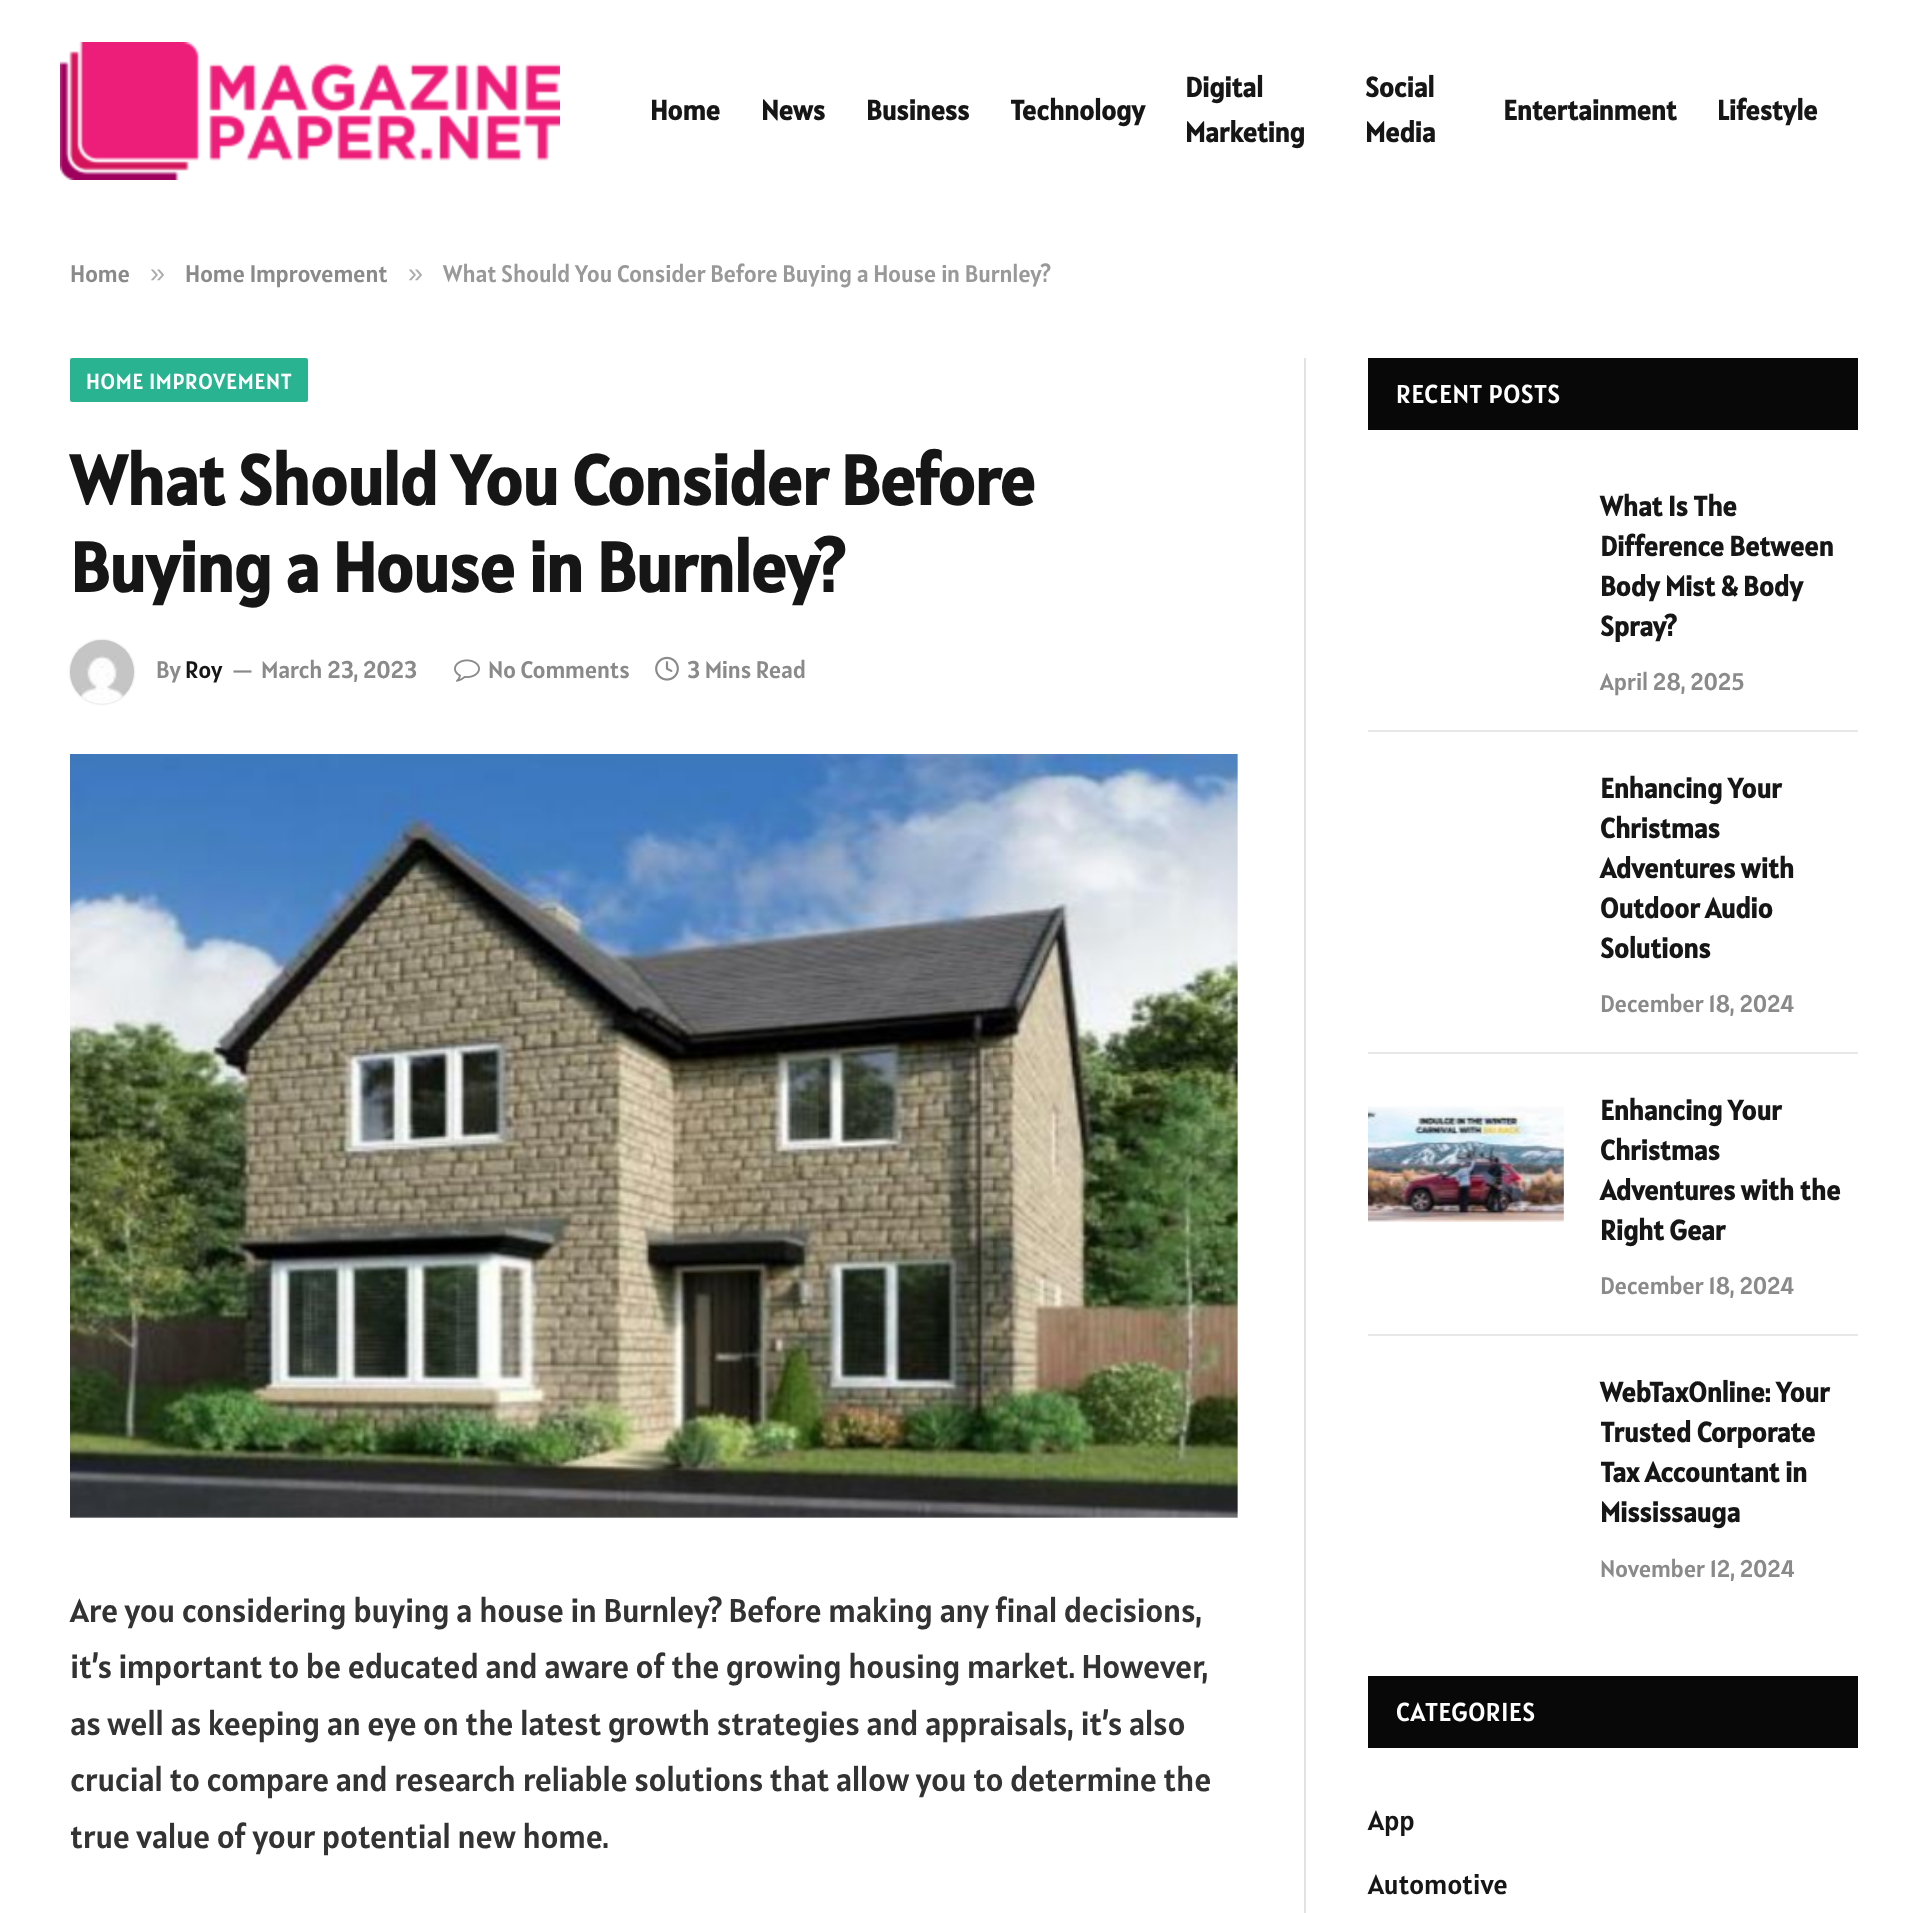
<!DOCTYPE html>
<meta charset="utf-8">
<style>body { margin: 0 } canvas { display: block }</style>
<canvas id="canvas" width="1927" height="1913"></canvas>
<img id="img1" src="images/1.png" hidden>
<img id="img2" src="images/2.png" hidden>
<img id="img3" src="images/3.png" hidden>
<img id="img4" src="images/4.png" hidden>
<img id="img5" src="images/5.png" hidden>
<img id="img6" src="images/6.png" hidden>
<script>
window.onload = function () {
    const canvas = document.getElementById('canvas');
    const context = canvas.getContext('2d');
    context.miterLimit = 4;
    context.fontKerning = 'normal';

    context.fillStyle = 'rgb(255, 255, 255)';
    context.fillRect(0, 0, 1927, 1913);
    context.drawImage(document.getElementById('img1'), 60, 42, 500, 138);
    context.fillStyle = 'rgb(42, 179, 145)';
    context.beginPath();
    context.roundRect(70, 358, 238, 44, 2);
    context.fill();
    context.fillStyle = 'rgba(0, 0, 0, 0.2)';
    context.filter = 'blur(1px)';
    context.beginPath();
    context.roundRect(70, 640, 64, 64, 32);
    context.fill();
    context.filter = 'none';
    context.drawImage(document.getElementById('img2'), 70, 640, 64, 64);
    context.drawImage(document.getElementById('img3'), 454, 659, 26, 23);
    context.drawImage(document.getElementById('img4'), 655, 656, 24, 25);
    context.drawImage(document.getElementById('img5'), 70, 754, 1168, 764);
    context.fillStyle = 'rgb(226, 226, 226)';
    context.fillRect(1304, 358, 2, 1555);
    context.fillStyle = 'rgb(8, 8, 8)';
    context.fillRect(1368, 358, 490, 72);
    context.fillStyle = 'rgb(232, 232, 232)';
    context.fillRect(1368, 730, 490, 2);
    context.fillRect(1368, 1052, 490, 2);
    context.drawImage(document.getElementById('img6'), 1368, 1106, 196, 116);
    context.fillRect(1368, 1334, 490, 2);
    context.fillStyle = 'rgb(8, 8, 8)';
    context.fillRect(1368, 1676, 490, 72);
    context.font = 'bold 28px Alatsi';
    context.fillStyle = 'rgb(22, 22, 22)';
    context.fillText('Home', 650, 120);
    context.fillText('News', 761, 120);
    context.fillText('Business', 866, 120);
    context.fillText('Technology', 1010, 120);
    context.fillText('Digital', 1185, 97);
    context.fillText('Marketing', 1185, 142);
    context.fillText('Social', 1365, 97);
    context.fillText('Media', 1365, 142);
    context.fillText('Entertainment', 1503, 120);
    context.fillText('Lifestyle', 1717, 120);
    context.font = '24px Alatsi';
    context.fillStyle = 'rgb(138, 138, 138)';
    context.fillText('Home', 70, 282);
    context.font = '27px Liberation Sans';
    context.fillStyle = 'rgb(173, 173, 173)';
    context.fillText('»', 150, 282);
    context.font = '24px Alatsi';
    context.fillStyle = 'rgb(138, 138, 138)';
    context.fillText('Home Improvement', 185, 282);
    context.font = '27px Liberation Sans';
    context.fillStyle = 'rgb(173, 173, 173)';
    context.fillText('»', 408, 282);
    context.font = '24px Alatsi';
    context.fillStyle = 'rgb(153, 153, 153)';
    context.fillText('What Should You Consider Before Buying a House in Burnley?', 443, 282);
    context.letterSpacing = '0.7px';
    context.font = '22px Alatsi';
    context.fillStyle = 'rgb(255, 255, 255)';
    context.fillText('HOME IMPROVEMENT', 86, 389);
    context.letterSpacing = '-0.35px';
    context.font = 'bold 70px Alatsi';
    context.fillStyle = 'rgb(22, 22, 22)';
    context.fillText('What Should You Consider Before', 70, 505);
    context.fillText('Buying a House in Burnley?', 70, 592);
    context.letterSpacing = '0px';
    context.font = '24px Alatsi';
    context.fillStyle = 'rgb(138, 138, 138)';
    context.fillText('By', 156, 678);
    context.fillStyle = 'rgb(22, 22, 22)';
    context.fillText('Roy', 185, 678);
    context.font = '22px Alatsi';
    context.fillStyle = 'rgb(138, 138, 138)';
    context.fillText('—', 232, 678);
    context.font = '24px Alatsi';
    context.fillText('March 23, 2023', 261, 678);
    context.fillText('No Comments', 488, 678);
    context.fillText('3 Mins Read', 687, 678);
    context.font = '33.2px Alatsi';
    context.fillStyle = 'rgb(51, 51, 51)';
    context.fillText('Are you considering buying a house in Burnley? Before making any final decisions,', 70, 1622);
    context.fillText('it’s important to be educated and aware of the growing housing market. However,', 70, 1678);
    context.fillText('as well as keeping an eye on the latest growth strategies and appraisals, it’s also', 70, 1735);
    context.fillText('crucial to compare and research reliable solutions that allow you to determine the', 70, 1791);
    context.fillText('true value of your potential new home.', 70, 1848);
    context.letterSpacing = '0.5px';
    context.font = '26px Alatsi';
    context.fillStyle = 'rgb(255, 255, 255)';
    context.fillText('RECENT POSTS', 1396, 403);
    context.letterSpacing = '0px';
    context.font = 'bold 28px Alatsi';
    context.fillStyle = 'rgb(22, 22, 22)';
    context.fillText('What Is The', 1600, 516);
    context.fillText('Difference Between', 1600, 556);
    context.fillText('Body Mist & Body', 1600, 596);
    context.fillText('Spray?', 1600, 636);
    context.font = '24px Alatsi';
    context.fillStyle = 'rgb(138, 138, 138)';
    context.fillText('April 28, 2025', 1600, 690);
    context.font = 'bold 28px Alatsi';
    context.fillStyle = 'rgb(22, 22, 22)';
    context.fillText('Enhancing Your', 1600, 798);
    context.fillText('Christmas', 1600, 838);
    context.fillText('Adventures with', 1600, 878);
    context.fillText('Outdoor Audio', 1600, 918);
    context.fillText('Solutions', 1600, 958);
    context.font = '24px Alatsi';
    context.fillStyle = 'rgb(138, 138, 138)';
    context.fillText('December 18, 2024', 1600, 1012);
    context.font = 'bold 28px Alatsi';
    context.fillStyle = 'rgb(22, 22, 22)';
    context.fillText('Enhancing Your', 1600, 1120);
    context.fillText('Christmas', 1600, 1160);
    context.fillText('Adventures with the', 1600, 1200);
    context.fillText('Right Gear', 1600, 1240);
    context.font = '24px Alatsi';
    context.fillStyle = 'rgb(138, 138, 138)';
    context.fillText('December 18, 2024', 1600, 1294);
    context.font = 'bold 28px Alatsi';
    context.fillStyle = 'rgb(22, 22, 22)';
    context.fillText('WebTaxOnline: Your', 1600, 1402);
    context.fillText('Trusted Corporate', 1600, 1442);
    context.fillText('Tax Accountant in', 1600, 1482);
    context.fillText('Mississauga', 1600, 1522);
    context.font = '24px Alatsi';
    context.fillStyle = 'rgb(138, 138, 138)';
    context.fillText('November 12, 2024', 1600, 1577);
    context.letterSpacing = '0.5px';
    context.font = '26px Alatsi';
    context.fillStyle = 'rgb(255, 255, 255)';
    context.fillText('CATEGORIES', 1396, 1721);
    context.letterSpacing = '0px';
    context.font = '28px Alatsi';
    context.fillStyle = 'rgb(22, 22, 22)';
    context.fillText('App', 1368, 1830);
    context.fillText('Automotive', 1368, 1894);
};
</script>
